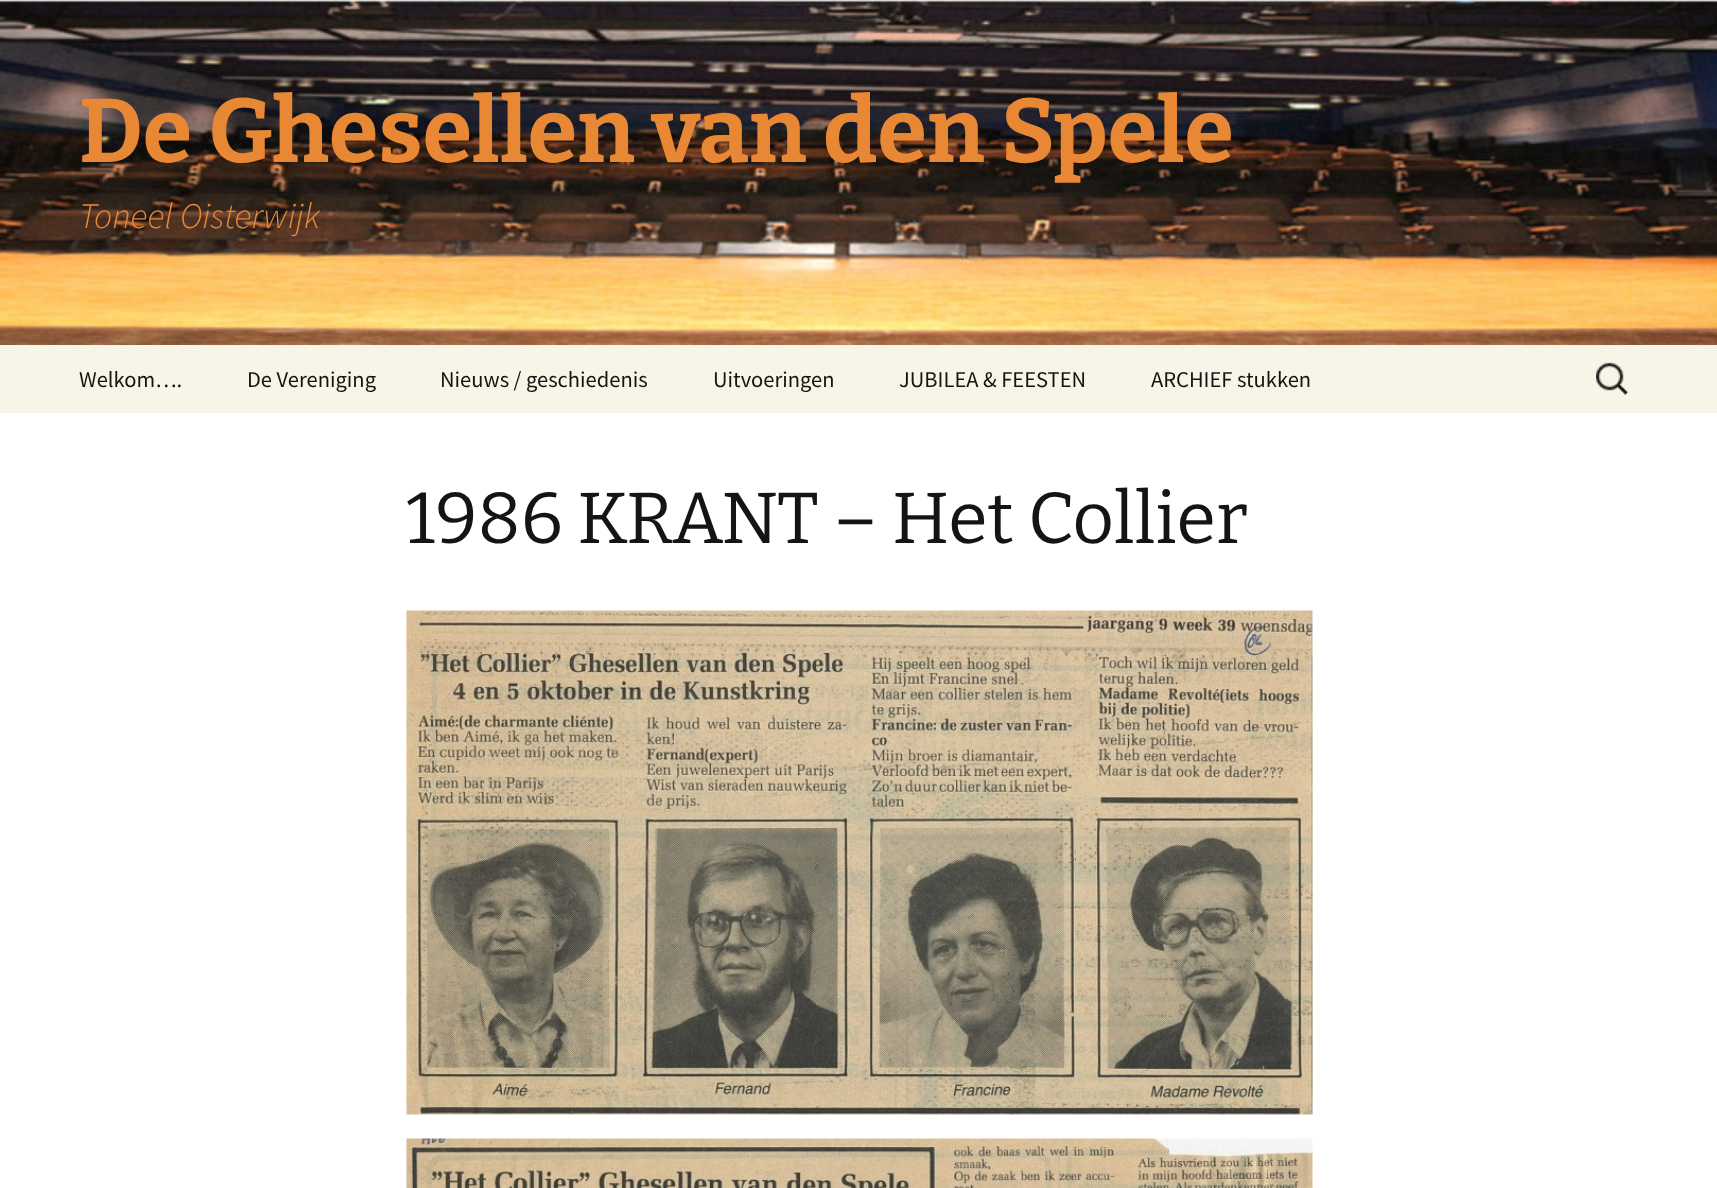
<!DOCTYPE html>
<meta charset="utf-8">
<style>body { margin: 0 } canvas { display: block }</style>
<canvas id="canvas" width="1717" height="1188"></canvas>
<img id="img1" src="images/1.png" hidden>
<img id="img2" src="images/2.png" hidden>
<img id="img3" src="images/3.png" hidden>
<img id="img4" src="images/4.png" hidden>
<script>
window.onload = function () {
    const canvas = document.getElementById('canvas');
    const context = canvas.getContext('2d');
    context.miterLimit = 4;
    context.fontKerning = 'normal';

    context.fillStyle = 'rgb(255, 255, 255)';
    context.fillRect(0, 0, 1717, 1188);
    context.drawImage(document.getElementById('img1'), 0, 0, 1717, 345);
    context.fillStyle = 'rgb(247, 245, 231)';
    context.fillRect(0, 345, 1717, 68);
    context.drawImage(document.getElementById('img2'), 1596, 362, 32, 33);
    context.drawImage(document.getElementById('img3'), 406, 610, 907, 505);
    context.drawImage(document.getElementById('img4'), 406, 1138, 907, 50);
    context.font = '100 90px Bitter';
    context.fillStyle = 'rgb(232, 136, 53)';
    context.fillText('De Ghesellen van den Spele', 79, 162);
    context.font = 'italic 300 36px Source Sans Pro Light';
    context.fillText('Toneel Oisterwijk', 79, 228);
    context.font = '22.5px Source Sans Pro';
    context.fillStyle = 'rgb(20, 20, 18)';
    context.fillText('Welkom….', 79, 387);
    context.fillText('De Vereniging', 247, 387);
    context.fillText('Nieuws / geschiedenis', 440, 387);
    context.fillText('Uitvoeringen', 713, 387);
    context.fillText('JUBILEA & FEESTEN', 899, 387);
    context.fillText('ARCHIEF stukken', 1151, 387);
    context.font = '100 72px "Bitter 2"';
    context.fillText('1986 KRANT – Het Collier', 406, 543);
};
</script>
